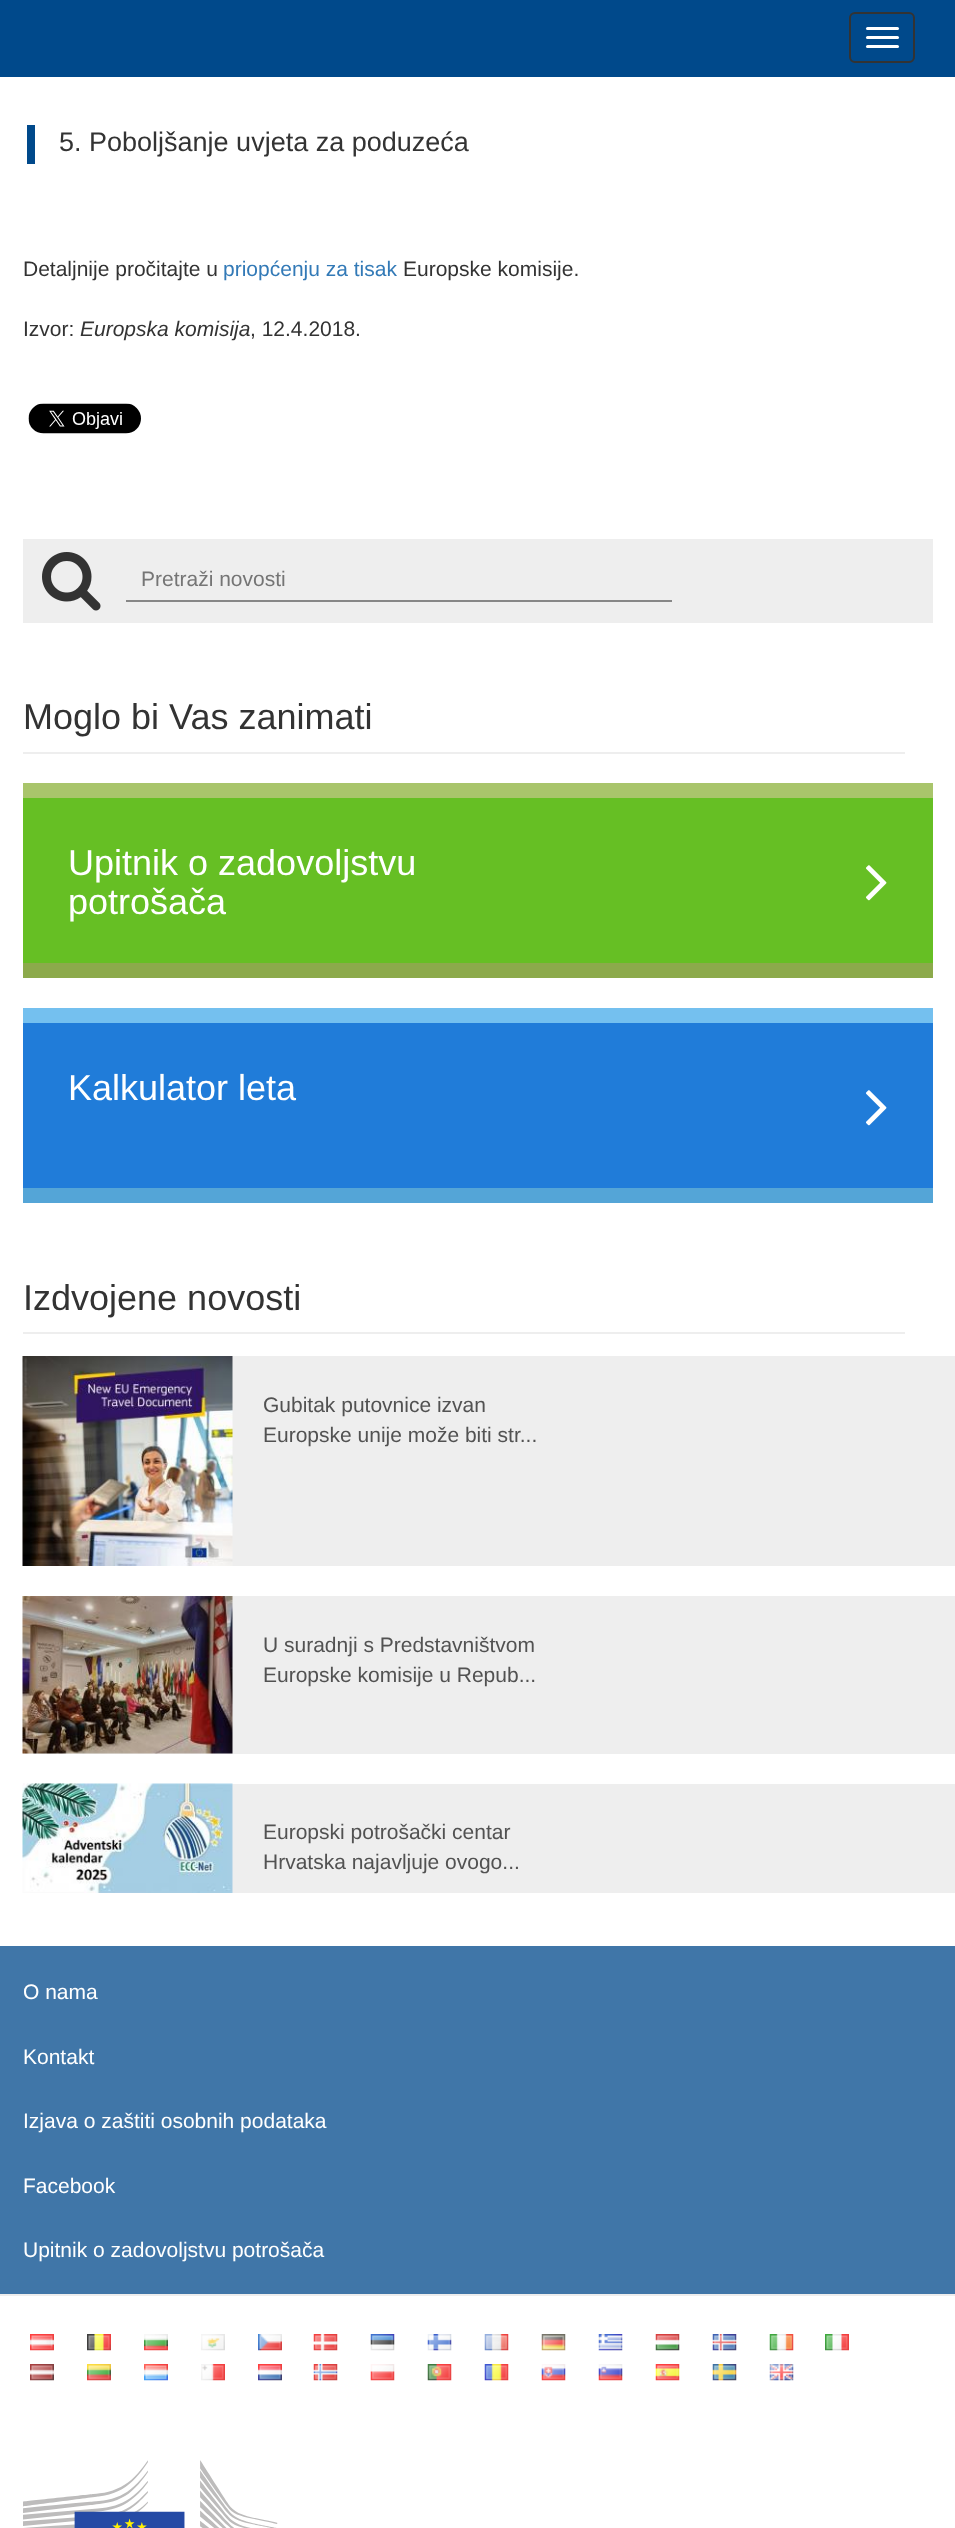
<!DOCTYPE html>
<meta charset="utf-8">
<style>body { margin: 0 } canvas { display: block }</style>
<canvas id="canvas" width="955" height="2528"></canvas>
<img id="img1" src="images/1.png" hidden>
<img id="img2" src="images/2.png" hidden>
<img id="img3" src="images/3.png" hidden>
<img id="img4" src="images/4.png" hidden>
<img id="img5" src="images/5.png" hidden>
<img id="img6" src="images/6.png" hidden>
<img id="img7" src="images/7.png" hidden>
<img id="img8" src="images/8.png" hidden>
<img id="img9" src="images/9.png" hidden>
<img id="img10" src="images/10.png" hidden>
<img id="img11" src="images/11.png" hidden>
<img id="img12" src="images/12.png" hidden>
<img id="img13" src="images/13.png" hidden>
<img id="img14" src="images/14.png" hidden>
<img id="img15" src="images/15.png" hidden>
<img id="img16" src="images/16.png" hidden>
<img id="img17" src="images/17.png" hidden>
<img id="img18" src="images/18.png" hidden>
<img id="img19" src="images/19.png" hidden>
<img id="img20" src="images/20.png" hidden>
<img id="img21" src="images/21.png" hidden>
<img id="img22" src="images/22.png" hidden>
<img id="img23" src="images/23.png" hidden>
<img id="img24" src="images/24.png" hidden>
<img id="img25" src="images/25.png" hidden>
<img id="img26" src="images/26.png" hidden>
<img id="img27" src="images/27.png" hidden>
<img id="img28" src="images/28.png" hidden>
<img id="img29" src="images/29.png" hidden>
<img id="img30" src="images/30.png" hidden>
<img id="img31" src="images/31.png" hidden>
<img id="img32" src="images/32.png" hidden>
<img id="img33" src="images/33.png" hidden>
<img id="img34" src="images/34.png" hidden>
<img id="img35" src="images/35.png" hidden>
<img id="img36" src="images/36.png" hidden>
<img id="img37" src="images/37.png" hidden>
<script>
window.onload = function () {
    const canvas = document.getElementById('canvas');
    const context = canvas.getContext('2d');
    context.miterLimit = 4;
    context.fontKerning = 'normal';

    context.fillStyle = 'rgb(255, 255, 255)';
    context.fillRect(0, 0, 955, 2528);
    context.fillStyle = 'rgb(0, 73, 139)';
    context.fillRect(0, 0, 955, 77);
    context.beginPath();
    context.roundRect(850, 13, 64, 49, 5);
    context.strokeStyle = 'rgb(51, 51, 51)';
    context.lineWidth = 2;
    context.stroke();
    context.fillStyle = 'rgb(255, 255, 255)';
    context.beginPath();
    context.roundRect(866, 27, 33, 3, 1.5);
    context.fill();
    context.beginPath();
    context.roundRect(866, 36, 33, 3, 1.5);
    context.fill();
    context.beginPath();
    context.roundRect(866, 45, 33, 3, 1.5);
    context.fill();
    context.fillStyle = 'rgb(0, 73, 139)';
    context.fillRect(27, 125, 8, 39);
    context.drawImage(document.getElementById('img1'), 28, 403, 113, 31);
    context.fillStyle = 'rgb(238, 238, 238)';
    context.fillRect(23, 539, 910, 84);
    context.drawImage(document.getElementById('img2'), 42, 552, 59, 59);
    context.fillStyle = 'rgb(135, 135, 135)';
    context.fillRect(126, 600, 546, 2);
    context.fillStyle = 'rgb(238, 238, 238)';
    context.fillRect(23, 752, 882, 2);
    context.fillStyle = 'rgb(102, 191, 36)';
    context.fillRect(23, 798, 910, 165);
    context.fillStyle = 'rgb(169, 197, 107)';
    context.fillRect(23, 783, 910, 15);
    context.fillStyle = 'rgb(140, 170, 75)';
    context.fillRect(23, 963, 910, 15);
    context.drawImage(document.getElementById('img3'), 866, 865, 21, 36);
    context.fillStyle = 'rgb(32, 124, 217)';
    context.fillRect(23, 1023, 910, 165);
    context.fillStyle = 'rgb(116, 192, 239)';
    context.fillRect(23, 1008, 910, 15);
    context.fillStyle = 'rgb(84, 165, 215)';
    context.fillRect(23, 1188, 910, 15);
    context.drawImage(document.getElementById('img4'), 866, 1090, 21, 36);
    context.fillStyle = 'rgb(238, 238, 238)';
    context.fillRect(23, 1332, 882, 2);
    context.fillRect(232, 1356, 723, 210);
    context.drawImage(document.getElementById('img5'), 22, 1356, 211, 210);
    context.fillRect(23, 1596, 932, 158);
    context.drawImage(document.getElementById('img6'), 22, 1596, 211, 158);
    context.fillRect(232, 1784, 723, 109);
    context.drawImage(document.getElementById('img7'), 22, 1783, 211, 110);
    context.fillStyle = 'rgb(64, 118, 168)';
    context.fillRect(0, 1946, 955, 348);
    context.fillStyle = 'rgb(237, 237, 237)';
    context.fillRect(0, 2294, 955, 2);
    context.drawImage(document.getElementById('img8'), 30, 2334, 24, 17);
    context.drawImage(document.getElementById('img9'), 87, 2334, 24, 17);
    context.drawImage(document.getElementById('img10'), 144, 2334, 24, 17);
    context.drawImage(document.getElementById('img11'), 201, 2334, 24, 17);
    context.drawImage(document.getElementById('img12'), 258, 2334, 24, 17);
    context.drawImage(document.getElementById('img13'), 313, 2334, 25, 17);
    context.drawImage(document.getElementById('img14'), 370, 2334, 25, 17);
    context.drawImage(document.getElementById('img15'), 427, 2334, 25, 17);
    context.drawImage(document.getElementById('img16'), 484, 2334, 25, 17);
    context.drawImage(document.getElementById('img17'), 541, 2334, 25, 17);
    context.drawImage(document.getElementById('img18'), 598, 2334, 25, 17);
    context.drawImage(document.getElementById('img19'), 655, 2334, 25, 17);
    context.drawImage(document.getElementById('img20'), 712, 2334, 25, 17);
    context.drawImage(document.getElementById('img21'), 769, 2334, 25, 17);
    context.drawImage(document.getElementById('img22'), 825, 2334, 24, 17);
    context.drawImage(document.getElementById('img23'), 30, 2364, 24, 17);
    context.drawImage(document.getElementById('img24'), 87, 2364, 24, 17);
    context.drawImage(document.getElementById('img25'), 144, 2364, 24, 17);
    context.drawImage(document.getElementById('img26'), 201, 2364, 24, 17);
    context.drawImage(document.getElementById('img27'), 258, 2364, 24, 17);
    context.drawImage(document.getElementById('img28'), 313, 2364, 25, 17);
    context.drawImage(document.getElementById('img29'), 370, 2364, 25, 17);
    context.drawImage(document.getElementById('img30'), 427, 2364, 25, 17);
    context.drawImage(document.getElementById('img31'), 484, 2364, 25, 17);
    context.drawImage(document.getElementById('img32'), 541, 2364, 25, 17);
    context.drawImage(document.getElementById('img33'), 598, 2364, 25, 17);
    context.drawImage(document.getElementById('img34'), 655, 2364, 25, 17);
    context.drawImage(document.getElementById('img35'), 712, 2364, 25, 17);
    context.drawImage(document.getElementById('img36'), 769, 2364, 25, 17);
    context.drawImage(document.getElementById('img37'), 23, 2460, 255, 68);
    context.font = '27px Liberation Sans';
    context.fillStyle = 'rgb(51, 51, 51)';
    context.fillText('5. Poboljšanje uvjeta za poduzeća', 59, 151);
    context.font = '21px Liberation Sans';
    context.fillText('Detaljnije pročitajte u', 23, 276);
    context.fillStyle = 'rgb(51, 122, 183)';
    context.fillText('priopćenju za tisak', 223, 276);
    context.fillStyle = 'rgb(51, 51, 51)';
    context.fillText('Europske komisije.', 403, 276);
    context.fillText('Izvor:', 23, 336);
    context.font = 'italic 21px Liberation Sans';
    context.fillText('Europska komisija', 80, 336);
    context.font = '21px Liberation Sans';
    context.fillText(', 12.4.2018.', 250, 336);
    context.fillStyle = 'rgb(117, 117, 117)';
    context.fillText('Pretraži novosti', 141, 586);
    context.font = '36px Liberation Sans';
    context.fillStyle = 'rgb(51, 51, 51)';
    context.fillText('Moglo bi Vas zanimati', 23, 729);
    context.fillStyle = 'rgb(255, 255, 255)';
    context.fillText('Upitnik o zadovoljstvu', 68, 875);
    context.fillText('potrošača', 68, 914);
    context.fillText('Kalkulator leta', 68, 1100);
    context.fillStyle = 'rgb(51, 51, 51)';
    context.fillText('Izdvojene novosti', 23, 1310);
    context.font = '21px Liberation Sans';
    context.fillStyle = 'rgb(82, 82, 82)';
    context.fillText('‌Gubitak putovnice izvan', 263, 1412);
    context.fillText('Europske unije može biti str...', 263, 1442);
    context.fillText('‌U suradnji s Predstavništvom', 263, 1652);
    context.fillText('Europske komisije u Repub...', 263, 1682);
    context.fillText('‌Europski potrošački centar', 263, 1839);
    context.fillText('Hrvatska najavljuje ovogo...', 263, 1869);
    context.fillStyle = 'rgb(255, 255, 255)';
    context.fillText('O nama', 23, 1999);
    context.fillText('Kontakt', 23, 2064);
    context.fillText('Izjava o zaštiti osobnih podataka', 23, 2128);
    context.fillText('Facebook', 23, 2193);
    context.fillText('Upitnik o zadovoljstvu potrošača', 23, 2257);
};
</script>
